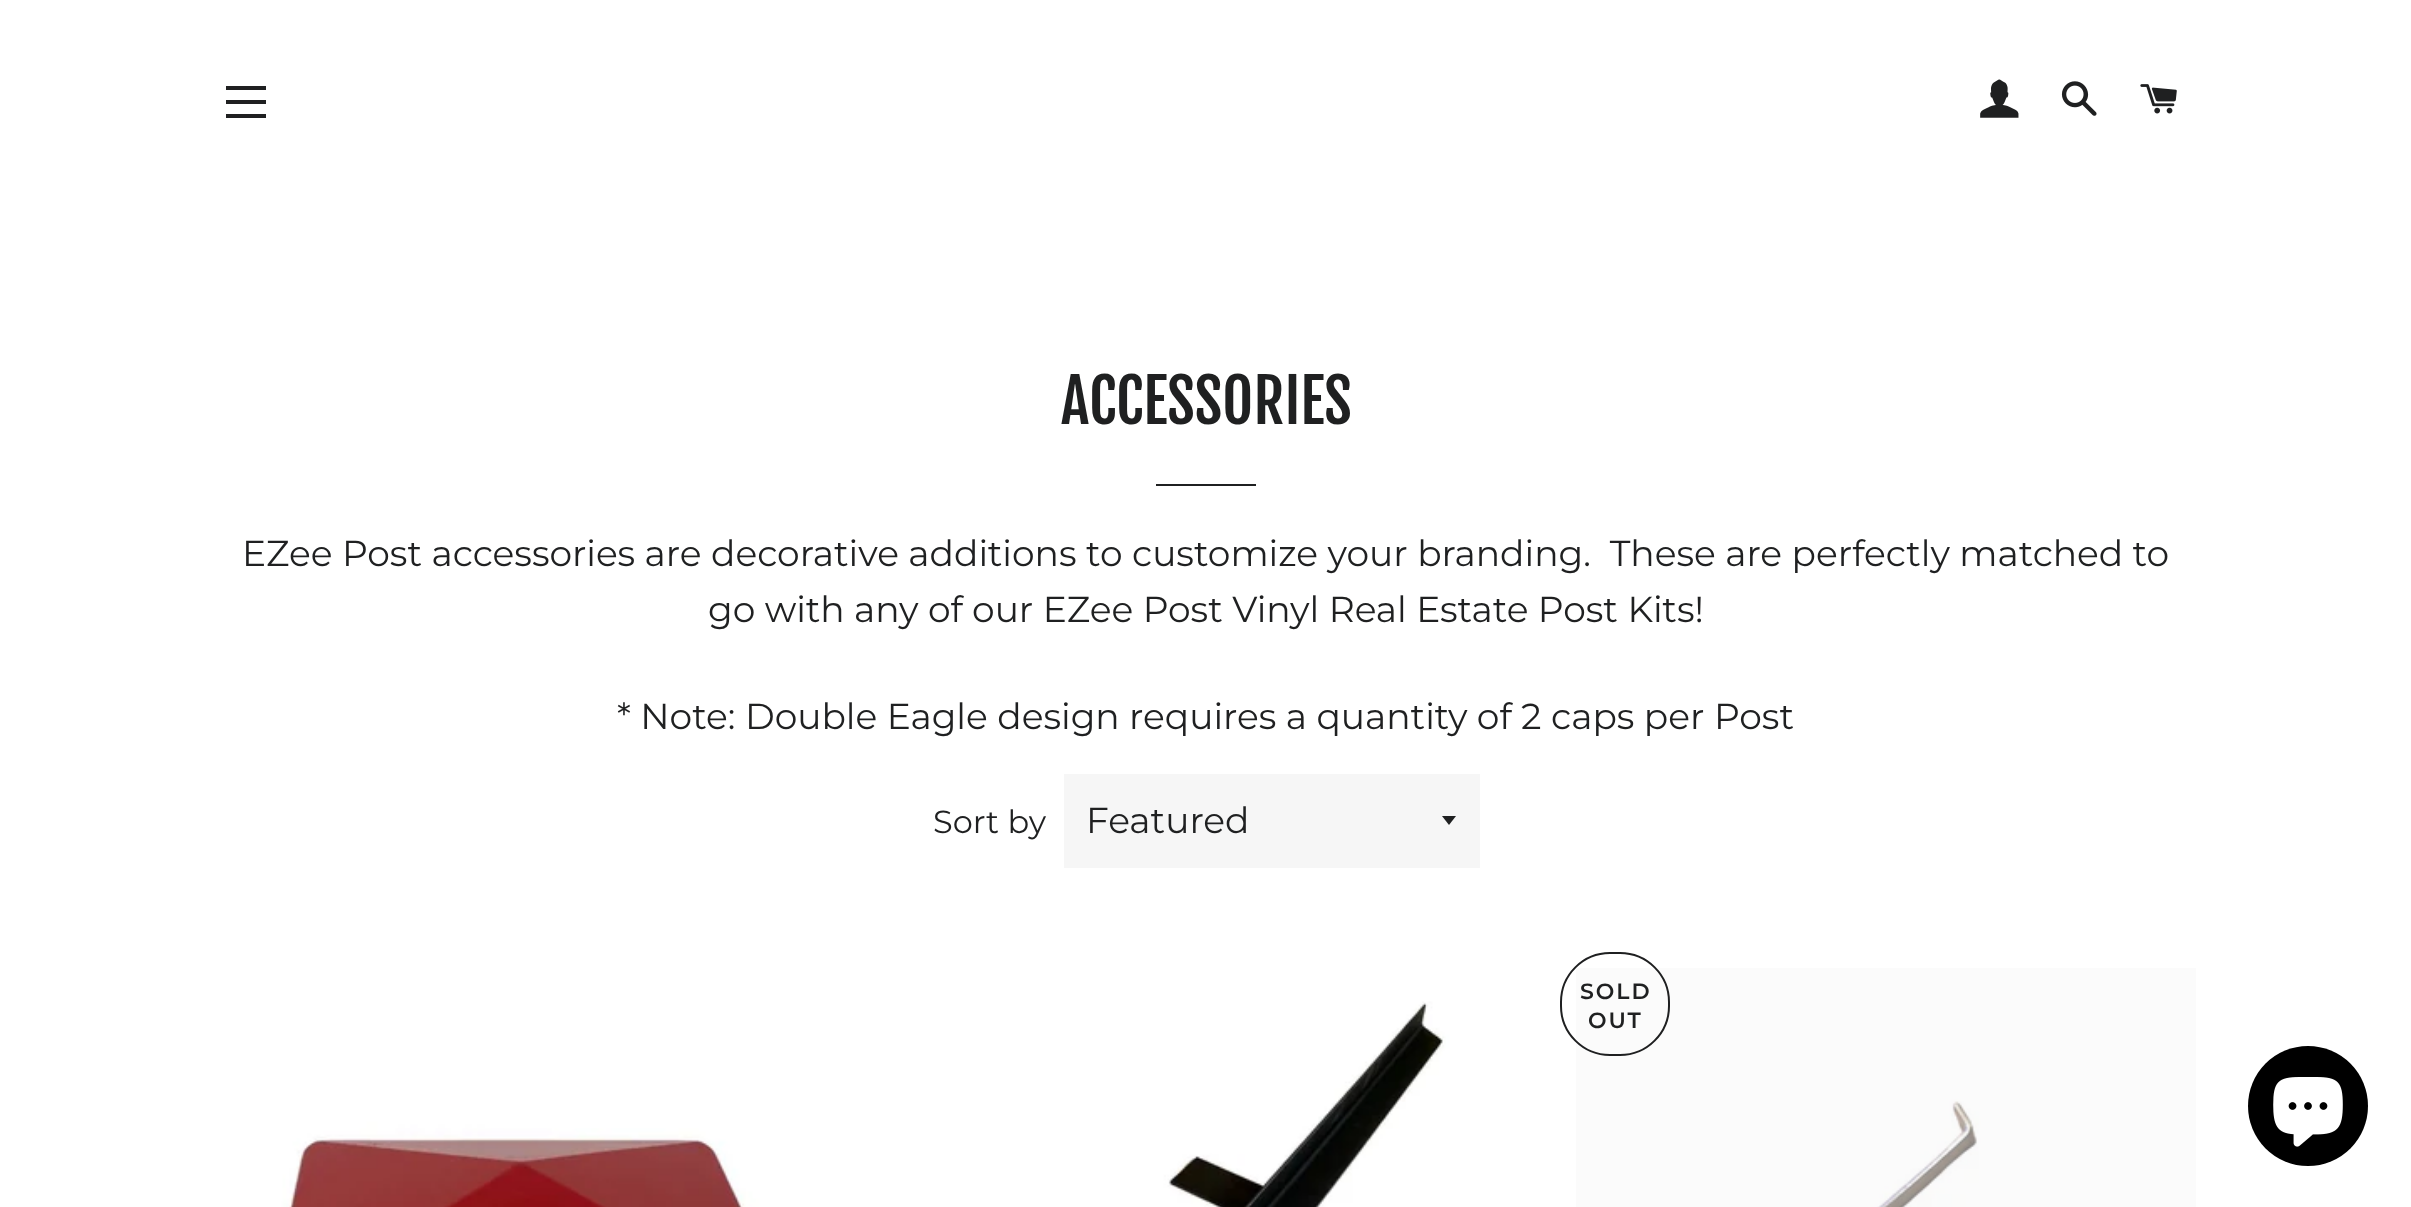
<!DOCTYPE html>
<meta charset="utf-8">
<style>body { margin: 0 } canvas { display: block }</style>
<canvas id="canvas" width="2411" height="1207"></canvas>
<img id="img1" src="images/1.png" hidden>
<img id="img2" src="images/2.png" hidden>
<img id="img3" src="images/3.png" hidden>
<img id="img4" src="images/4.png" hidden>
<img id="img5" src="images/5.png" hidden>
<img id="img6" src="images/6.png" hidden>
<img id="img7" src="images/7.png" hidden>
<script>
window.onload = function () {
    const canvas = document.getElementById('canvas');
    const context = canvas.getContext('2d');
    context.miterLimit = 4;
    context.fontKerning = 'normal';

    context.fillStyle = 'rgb(255, 255, 255)';
    context.fillRect(0, 0, 2411, 1207);
    context.fillStyle = 'rgb(31, 32, 33)';
    context.fillRect(226, 86, 40, 4);
    context.fillRect(226, 100, 40, 4);
    context.fillRect(226, 114, 40, 4);
    context.drawImage(document.getElementById('img1'), 1980, 79, 39, 39);
    context.drawImage(document.getElementById('img2'), 2061, 81, 36, 35);
    context.drawImage(document.getElementById('img3'), 2140, 84, 37, 30);
    context.fillRect(1156, 484, 100, 2);
    context.fillStyle = 'rgb(246, 246, 246)';
    context.fillRect(1064, 774, 416, 94);
    context.fillStyle = 'rgb(31, 32, 33)';
    context.beginPath();
    context.moveTo(1442, 816);
    context.lineTo(1449, 825);
    context.lineTo(1456, 816);
    context.closePath();
    context.fill();
    context.drawImage(document.getElementById('img4'), 216, 968, 620, 239);
    context.drawImage(document.getElementById('img5'), 896, 968, 620, 239);
    context.fillStyle = 'rgb(246, 246, 246)';
    context.fillRect(1576, 968, 620, 239);
    context.drawImage(document.getElementById('img6'), 1576, 968, 620, 239);
    context.beginPath();
    context.roundRect(1561, 953, 108, 102, 49);
    context.strokeStyle = 'rgb(31, 32, 33)';
    context.lineWidth = 2;
    context.stroke();
    context.fillStyle = 'rgb(0, 0, 0)';
    context.beginPath();
    context.arc(2308, 1106, 60, 0, 2 * Math.PI);
    context.fill();
    context.drawImage(document.getElementById('img7'), 2273, 1077, 70, 70);
    context.font = '60px Fjalla One';
    context.fillStyle = 'rgb(31, 32, 33)';
    context.fillText('ACCESSORIES', 1061, 424);
    context.font = '36px Montserrat';
    context.fillText('EZee Post accessories are decorative additions to customize your branding.  These are perfectly matched to', 242, 566);
    context.fillText('go with any of our EZee Post Vinyl Real Estate Post Kits!', 708, 622);
    context.fillText('* Note: Double Eagle design requires a quantity of 2 caps per Post', 617, 729);
    context.font = '32px Montserrat';
    context.fillText('Sort by', 933, 833);
    context.font = '36px Montserrat';
    context.fillText('Featured', 1086, 833);
    context.letterSpacing = '2px';
    context.font = '600 22px Montserrat';
    context.fillText('SOLD', 1580, 999);
    context.fillText('OUT', 1588, 1028);
};
</script>
